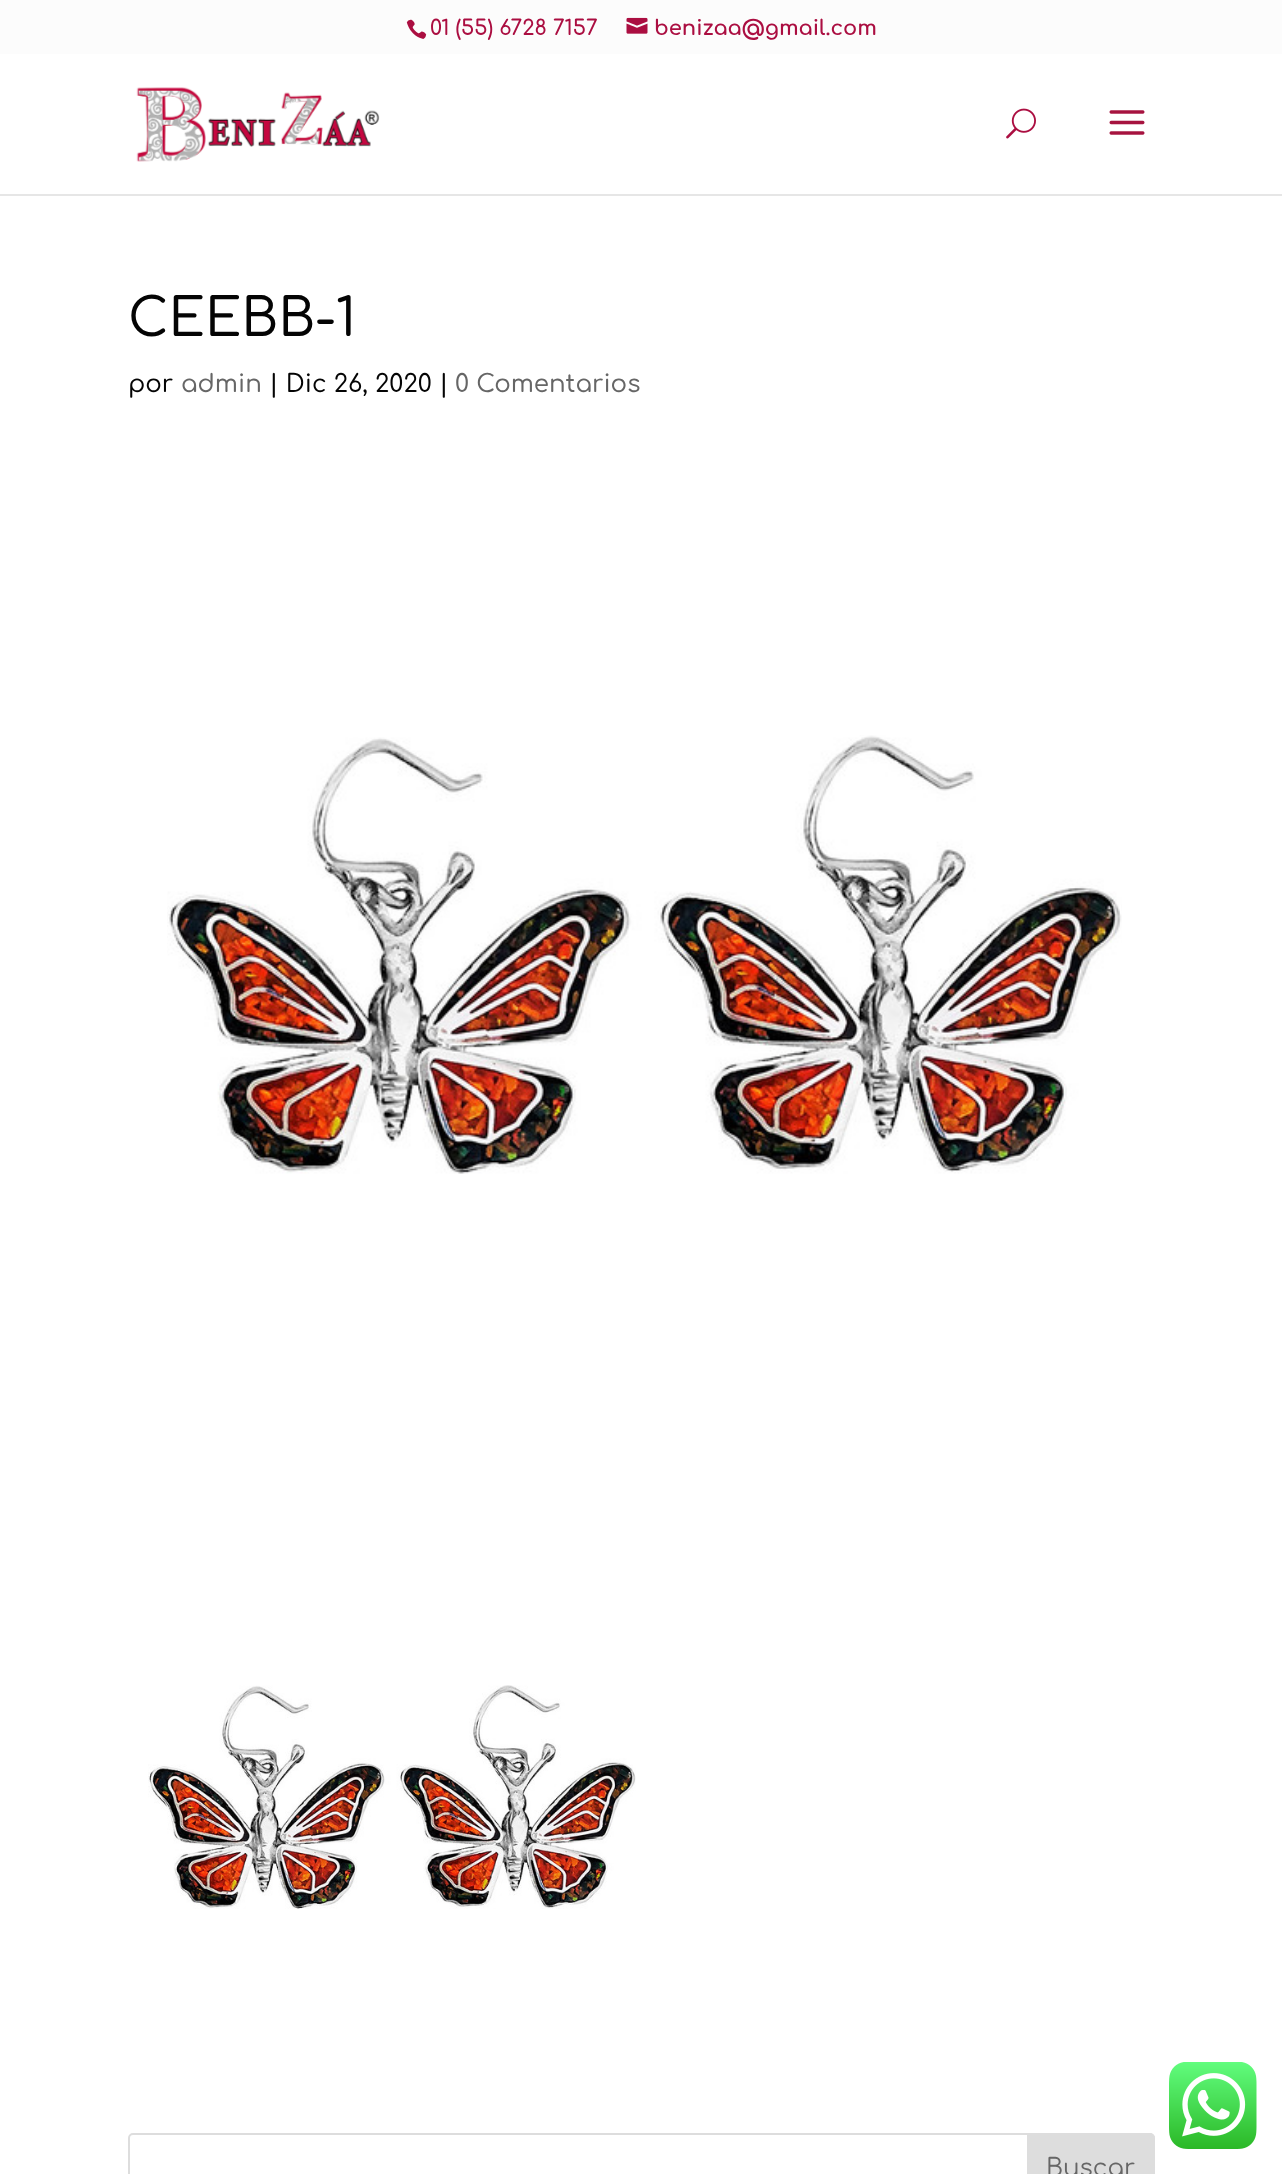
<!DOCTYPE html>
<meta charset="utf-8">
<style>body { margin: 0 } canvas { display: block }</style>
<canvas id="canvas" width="1282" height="2174"></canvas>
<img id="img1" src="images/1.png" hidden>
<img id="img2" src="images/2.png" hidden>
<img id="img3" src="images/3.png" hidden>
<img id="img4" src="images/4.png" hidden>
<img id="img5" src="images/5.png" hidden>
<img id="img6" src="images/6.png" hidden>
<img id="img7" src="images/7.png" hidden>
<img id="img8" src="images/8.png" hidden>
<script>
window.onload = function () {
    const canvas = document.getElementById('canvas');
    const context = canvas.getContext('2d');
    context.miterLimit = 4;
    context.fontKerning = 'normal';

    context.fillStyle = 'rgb(255, 255, 255)';
    context.fillRect(0, 0, 1282, 2174);
    context.fillStyle = 'rgb(252, 252, 252)';
    context.fillRect(0, 0, 1282, 54);
    context.drawImage(document.getElementById('img1'), 406, 19, 21, 20);
    context.drawImage(document.getElementById('img2'), 626, 17, 22, 17);
    context.fillStyle = 'rgb(230, 230, 230)';
    context.beginPath();
    context.moveTo(0, 194);
    context.lineTo(0, 196);
    context.lineTo(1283, 196);
    context.lineTo(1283, 56);
    context.lineTo(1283, 194);
    context.closePath();
    context.fill();
    context.drawImage(document.getElementById('img3'), 136, 87, 244, 75);
    context.drawImage(document.getElementById('img4'), 1006, 108, 30, 31);
    context.drawImage(document.getElementById('img5'), 1109, 110, 36, 25);
    context.drawImage(document.getElementById('img6'), 167, 735, 955, 439);
    context.drawImage(document.getElementById('img7'), 148, 1685, 488, 224);
    context.beginPath();
    context.roundRect(129, 2134, 1025, 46, 4);
    context.strokeStyle = 'rgb(221, 221, 221)';
    context.lineWidth = 2;
    context.stroke();
    context.fillStyle = 'rgb(221, 221, 221)';
    context.beginPath();
    context.moveTo(1028, 2134);
    context.lineTo(1150, 2134);
    context.bezierCurveTo(1152, 2134, 1154, 2136, 1154, 2138);
    context.lineTo(1154, 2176);
    context.bezierCurveTo(1154, 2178, 1152, 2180, 1150, 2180);
    context.lineTo(1028, 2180);
    context.closePath();
    context.fill();
    context.stroke();
    context.drawImage(document.getElementById('img8'), 1169, 2062, 88, 87);
    context.font = '600 21px Comfortaa';
    context.fillStyle = 'rgb(171, 14, 65)';
    context.fillText('01 (55) 6728 7157', 430, 35);
    context.font = 'bold 21px Comfortaa';
    context.fillText('benizaa@gmail.com', 654, 35);
    context.font = '500 52.5px Comfortaa';
    context.fillStyle = 'rgb(4, 4, 4)';
    context.fillText('CEEBB-1', 128, 336);
    context.font = '500 24.5px Comfortaa';
    context.fillText('por', 128, 392);
    context.fillStyle = 'rgb(102, 102, 102)';
    context.fillText('admin', 181, 392);
    context.fillStyle = 'rgb(4, 4, 4)';
    context.fillText('| Dic 26, 2020 |', 269, 392);
    context.fillStyle = 'rgb(102, 102, 102)';
    context.fillText('0 Comentarios', 455, 392);
    context.font = '24.5px Comfortaa';
    context.fillText('Buscar', 1046, 2176);
};
</script>
